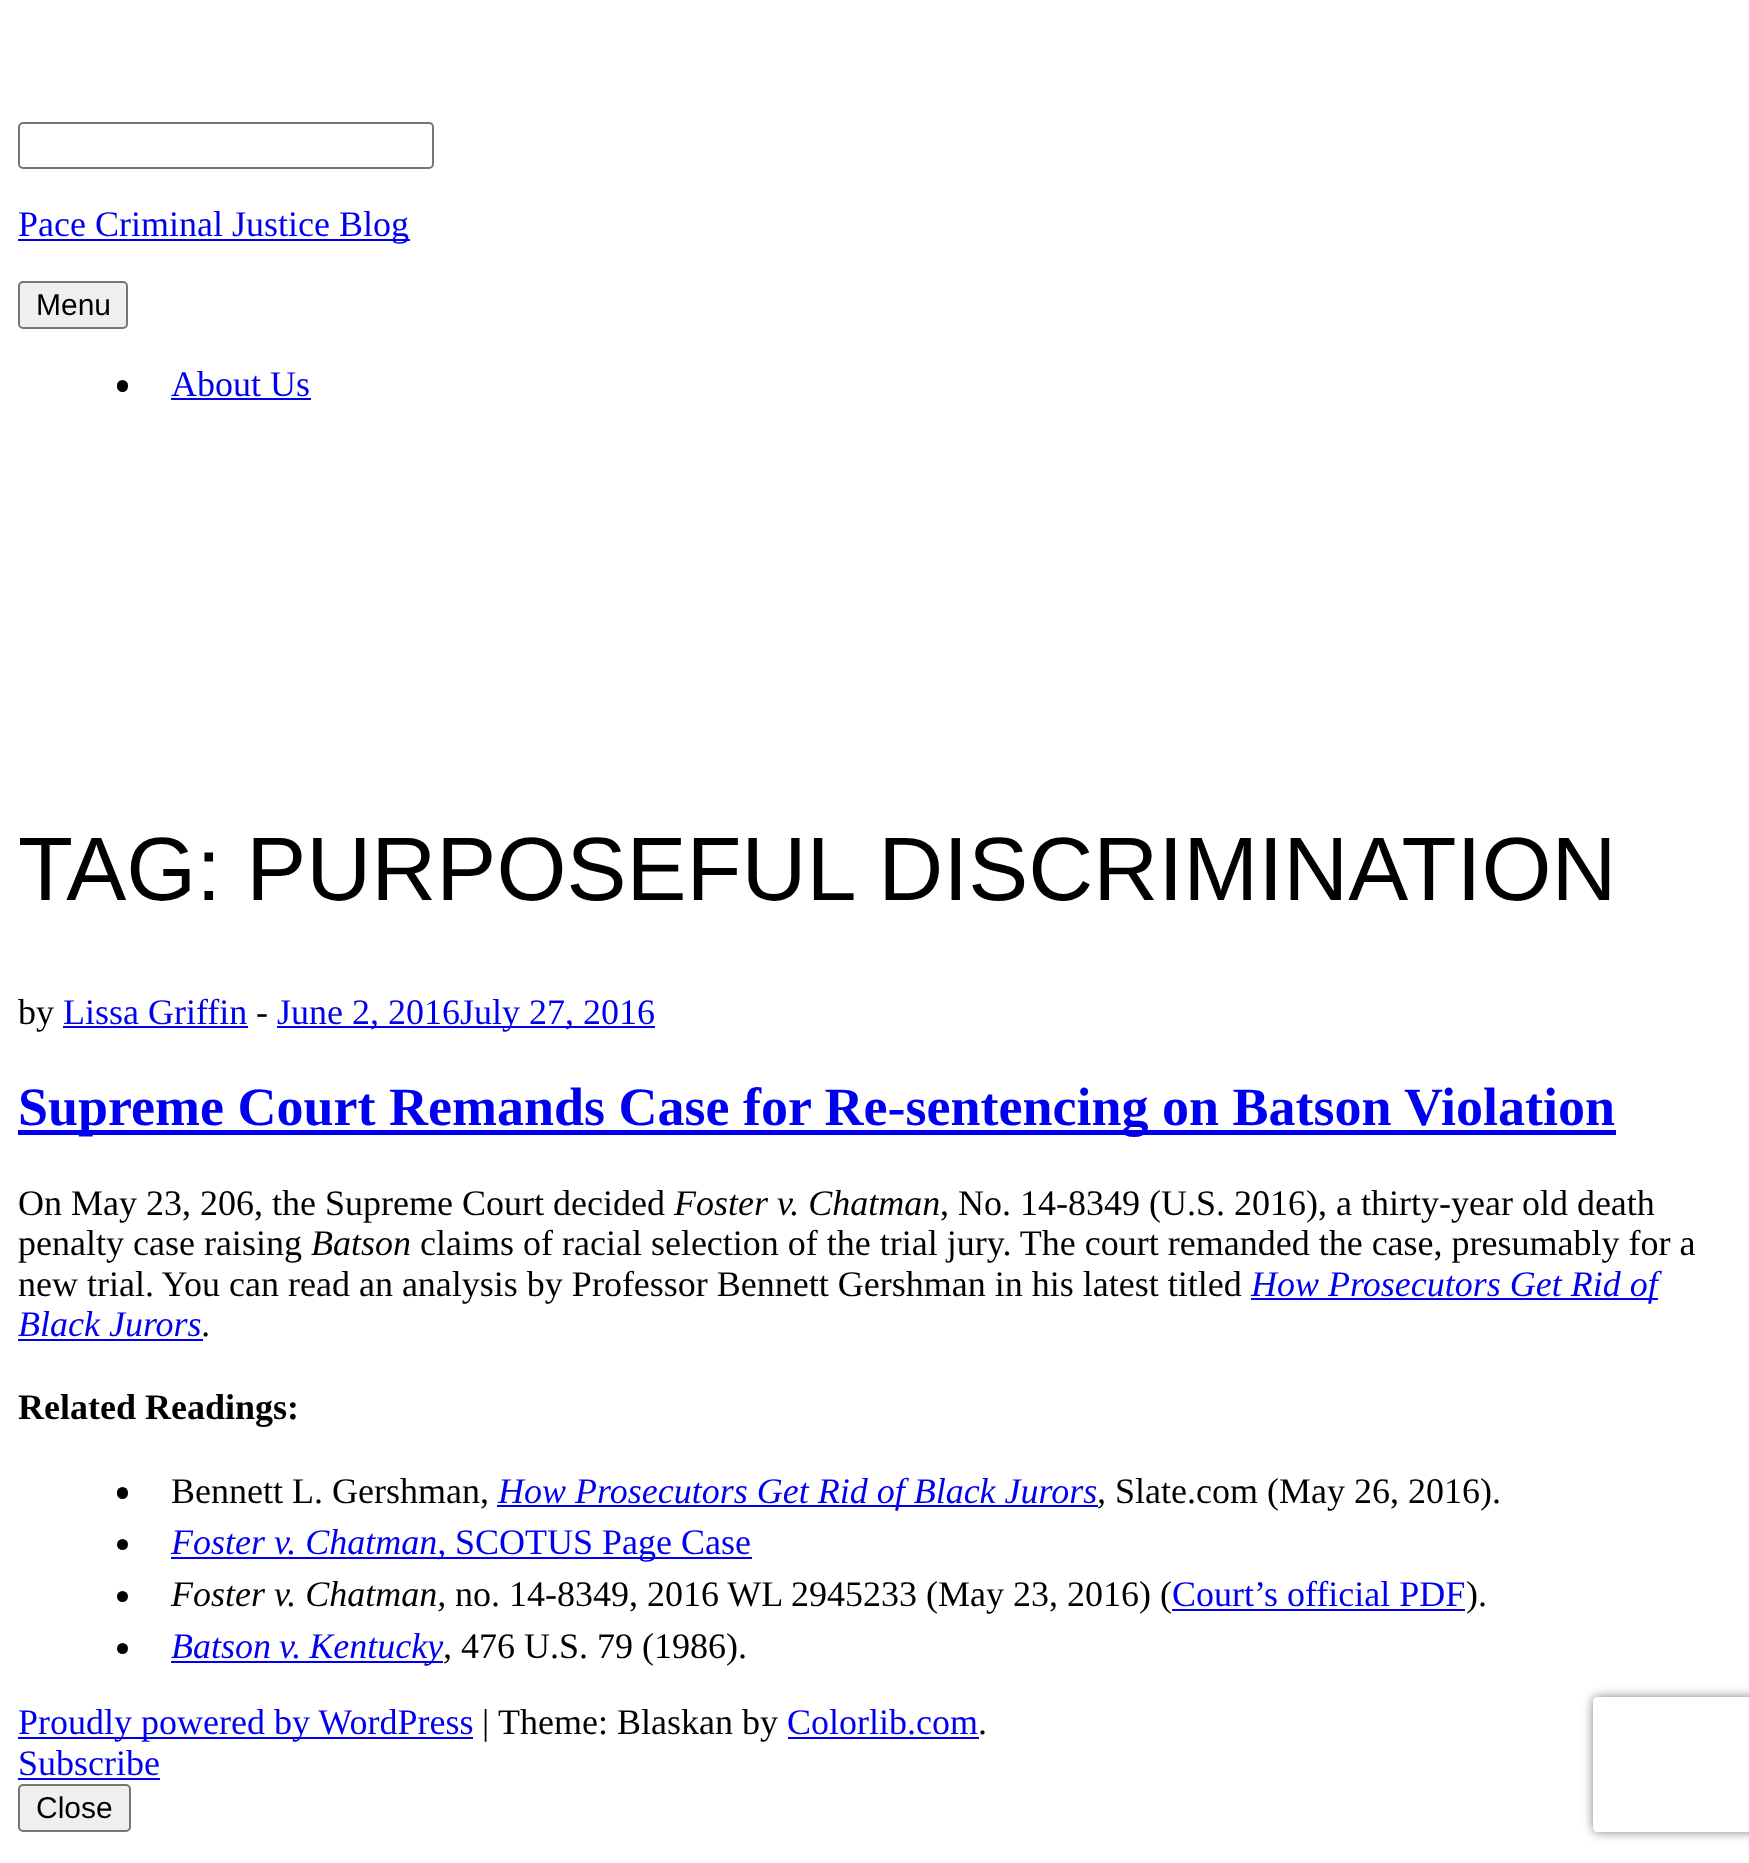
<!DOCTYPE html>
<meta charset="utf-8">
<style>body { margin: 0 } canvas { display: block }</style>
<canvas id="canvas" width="1749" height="1863"></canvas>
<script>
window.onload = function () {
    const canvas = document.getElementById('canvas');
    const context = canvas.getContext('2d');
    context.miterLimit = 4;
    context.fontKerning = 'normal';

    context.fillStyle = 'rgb(255, 255, 255)';
    context.fillRect(0, 0, 1749, 1863);
    context.beginPath();
    context.roundRect(19, 123, 414, 45, 4);
    context.strokeStyle = 'rgb(118, 118, 118)';
    context.lineWidth = 2;
    context.stroke();
    context.fillStyle = 'rgb(0, 0, 238)';
    context.fillRect(18, 239, 392, 2);
    context.fillStyle = 'rgb(239, 239, 239)';
    context.beginPath();
    context.roundRect(19, 282, 108, 46, 4);
    context.fill();
    context.stroke();
    context.fillStyle = 'rgb(0, 0, 0)';
    context.beginPath();
    context.roundRect(117, 380, 11, 12, 5.5);
    context.fill();
    context.fillStyle = 'rgb(0, 0, 238)';
    context.fillRect(171, 398, 140, 2);
    context.fillRect(63, 1026, 185, 2);
    context.fillRect(277, 1026, 378, 2);
    context.fillRect(18, 1130, 1598, 5);
    context.fillRect(1251, 1298, 407, 2);
    context.fillRect(18, 1339, 185, 2);
    context.fillStyle = 'rgb(0, 0, 0)';
    context.beginPath();
    context.roundRect(117, 1487, 11, 12, 5.5);
    context.fill();
    context.fillStyle = 'rgb(0, 0, 238)';
    context.fillRect(497, 1505, 601, 2);
    context.fillStyle = 'rgb(0, 0, 0)';
    context.beginPath();
    context.arc(122.5, 1544.5, 5.5, 0, 2 * Math.PI);
    context.fill();
    context.fillStyle = 'rgb(0, 0, 238)';
    context.fillRect(171, 1557, 581, 2);
    context.fillStyle = 'rgb(0, 0, 0)';
    context.beginPath();
    context.arc(122.5, 1596.5, 5.5, 0, 2 * Math.PI);
    context.fill();
    context.fillStyle = 'rgb(0, 0, 238)';
    context.fillRect(1172, 1609, 293, 2);
    context.fillStyle = 'rgb(0, 0, 0)';
    context.beginPath();
    context.arc(122.5, 1648.5, 5.5, 0, 2 * Math.PI);
    context.fill();
    context.fillStyle = 'rgb(0, 0, 238)';
    context.fillRect(171, 1661, 272, 2);
    context.fillRect(18, 1737, 455, 2);
    context.fillRect(788, 1737, 191, 2);
    context.fillRect(18, 1778, 142, 2);
    context.fillStyle = 'rgb(239, 239, 239)';
    context.beginPath();
    context.roundRect(19, 1785, 111, 46, 4);
    context.fill();
    context.stroke();
    context.save();
    context.beginPath();
    context.moveTo(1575, 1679);
    context.lineTo(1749, 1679);
    context.lineTo(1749, 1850);
    context.lineTo(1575, 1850);
    context.closePath();
    context.moveTo(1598, 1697);
    context.lineTo(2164, 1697);
    context.bezierCurveTo(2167, 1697, 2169, 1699, 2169, 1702);
    context.lineTo(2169, 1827);
    context.bezierCurveTo(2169, 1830, 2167, 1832, 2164, 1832);
    context.lineTo(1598, 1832);
    context.bezierCurveTo(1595, 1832, 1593, 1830, 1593, 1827);
    context.lineTo(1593, 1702);
    context.bezierCurveTo(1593, 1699, 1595, 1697, 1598, 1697);
    context.closePath();
    context.clip('evenodd');
    context.fillStyle = 'rgb(128, 128, 128)';
    context.filter = 'blur(5.5px)';
    context.beginPath();
    context.roundRect(1593, 1697, 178, 135, 5);
    context.fill();
    context.filter = 'none';
    context.restore();
    context.font = '36px Liberation Serif';
    context.fillStyle = 'rgb(0, 0, 238)';
    context.fillText('Pace Criminal Justice Blog', 18, 236);
    context.font = '30px Liberation Sans';
    context.fillStyle = 'rgb(0, 0, 0)';
    context.fillText('Menu', 36, 315);
    context.font = '36px Liberation Serif';
    context.fillStyle = 'rgb(0, 0, 238)';
    context.fillText('About Us', 171, 396);
    context.font = '90px Liberation Sans';
    context.fillStyle = 'rgb(0, 0, 0)';
    context.fillText('TAG: PURPOSEFUL DISCRIMINATION', 18, 900);
    context.font = '36px Liberation Serif';
    context.fillText('by', 18, 1024);
    context.fillStyle = 'rgb(0, 0, 238)';
    context.fillText('Lissa Griffin', 63, 1024);
    context.fillStyle = 'rgb(0, 0, 0)';
    context.fillText('-', 256, 1024);
    context.fillStyle = 'rgb(0, 0, 238)';
    context.fillText('June 2, 2016July 27, 2016', 277, 1024);
    context.font = 'bold 54px Liberation Serif';
    context.fillText('Supreme Court Remands Case for Re-sentencing on Batson Violation', 18, 1125);
    context.font = '36px Liberation Serif';
    context.fillStyle = 'rgb(0, 0, 0)';
    context.fillText('On May 23, 206, the Supreme Court decided', 18, 1215);
    context.font = 'italic 36px Liberation Serif';
    context.fillText('Foster v. Chatman', 674, 1215);
    context.font = '36px Liberation Serif';
    context.fillText(', No. 14-8349 (U.S. 2016), a thirty-year old death', 940, 1215);
    context.fillText('penalty case raising', 18, 1255);
    context.font = 'italic 36px Liberation Serif';
    context.fillText('Batson', 311, 1255);
    context.font = '36px Liberation Serif';
    context.fillText('claims of racial selection of the trial jury. The court remanded the case, presumably for a', 420, 1255);
    context.fillText('new trial. You can read an analysis by Professor Bennett Gershman in his latest titled', 18, 1296);
    context.font = 'italic 36px Liberation Serif';
    context.fillStyle = 'rgb(0, 0, 238)';
    context.fillText('How Prosecutors Get Rid of', 1251, 1296);
    context.fillText('Black Jurors', 18, 1336);
    context.fillStyle = 'rgb(0, 0, 0)';
    context.fillText('.', 202, 1336);
    context.font = 'bold 36px Liberation Serif';
    context.fillText('Related Readings:', 18, 1419);
    context.font = '36px Liberation Serif';
    context.fillText('Bennett L. Gershman,', 171, 1503);
    context.font = 'italic 36px Liberation Serif';
    context.fillStyle = 'rgb(0, 0, 238)';
    context.fillText('How Prosecutors Get Rid of Black Jurors', 498, 1503);
    context.font = '36px Liberation Serif';
    context.fillStyle = 'rgb(0, 0, 0)';
    context.fillText('Slate.com (May 26, 2016).', 1115, 1503);
    context.font = 'italic 36px Liberation Serif';
    context.fillText(',', 1097, 1503);
    context.fillStyle = 'rgb(0, 0, 238)';
    context.fillText('Foster v. Chatman,', 171, 1554);
    context.font = '36px Liberation Serif';
    context.fillText('SCOTUS Page Case', 455, 1554);
    context.font = 'italic 36px Liberation Serif';
    context.fillStyle = 'rgb(0, 0, 0)';
    context.fillText('Foster v. Chatman,', 171, 1606);
    context.font = '36px Liberation Serif';
    context.fillText('no. 14-8349, 2016 WL 2945233 (May 23, 2016) (', 455, 1606);
    context.fillStyle = 'rgb(0, 0, 238)';
    context.fillText('Court’s official PDF', 1172, 1606);
    context.fillStyle = 'rgb(0, 0, 0)';
    context.fillText(').', 1466, 1606);
    context.wordSpacing = '-1px';
    context.font = 'italic 36px Liberation Serif';
    context.fillStyle = 'rgb(0, 0, 238)';
    context.fillText('Batson v. Kentucky', 171, 1658);
    context.wordSpacing = '0px';
    context.font = '36px Liberation Serif';
    context.fillStyle = 'rgb(0, 0, 0)';
    context.fillText('476 U.S. 79 (1986).', 461, 1658);
    context.font = 'italic 36px Liberation Serif';
    context.fillText(',', 443, 1658);
    context.font = '36px Liberation Serif';
    context.fillStyle = 'rgb(0, 0, 238)';
    context.fillText('Proudly powered by WordPress', 18, 1734);
    context.fillStyle = 'rgb(0, 0, 0)';
    context.fillText('|', 482, 1734);
    context.fillText('Theme: Blaskan by', 498, 1734);
    context.fillStyle = 'rgb(0, 0, 238)';
    context.fillText('Colorlib.com', 787, 1734);
    context.fillStyle = 'rgb(0, 0, 0)';
    context.fillText('.', 978, 1734);
    context.fillStyle = 'rgb(0, 0, 238)';
    context.fillText('Subscribe', 18, 1775);
    context.font = '30px Liberation Sans';
    context.fillStyle = 'rgb(0, 0, 0)';
    context.fillText('Close', 36, 1818);
};
</script>
